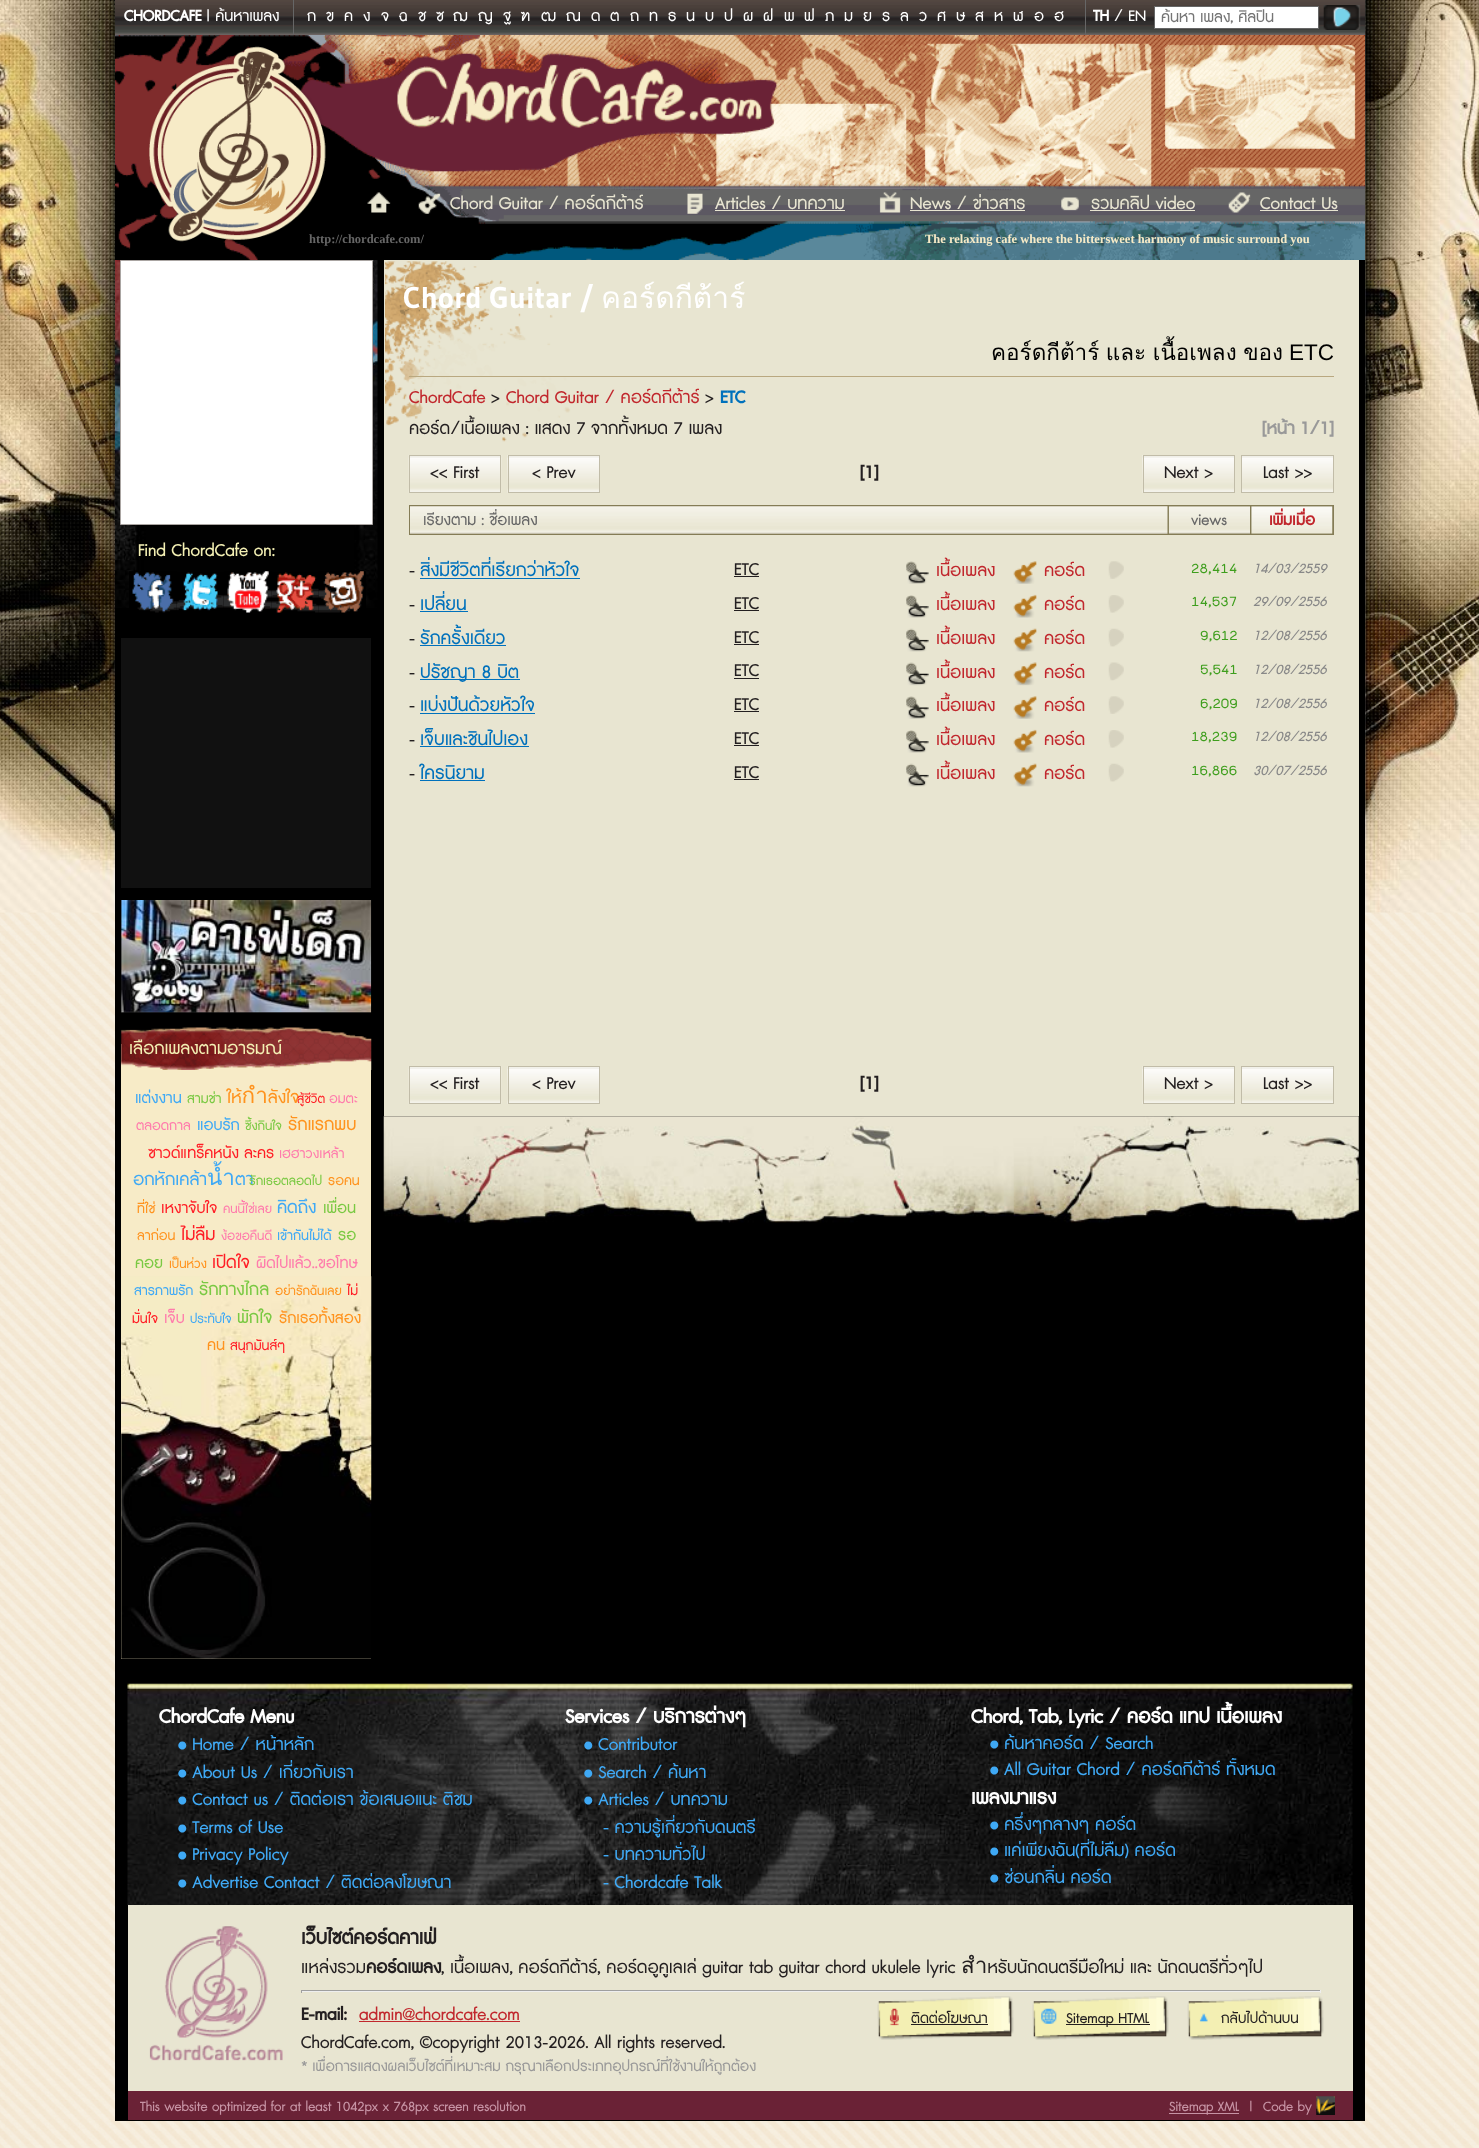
<!DOCTYPE html>
<meta charset="utf-8">
<style>body { margin: 0 } canvas { display: block }</style>
<canvas id="canvas" width="1479" height="2148"></canvas>
<img id="img1" src="images/1.png" hidden>
<img id="img2" src="images/2.png" hidden>
<img id="img3" src="images/3.png" hidden>
<img id="img4" src="images/4.png" hidden>
<img id="img5" src="images/5.png" hidden>
<img id="img6" src="images/7.png" hidden>
<img id="img7" src="images/8.png" hidden>
<img id="img8" src="images/9.png" hidden>
<img id="img9" src="images/10.png" hidden>
<img id="img10" src="images/11.png" hidden>
<img id="img11" src="images/12.png" hidden>
<img id="img12" src="images/13.png" hidden>
<img id="img13" src="images/14.png" hidden>
<img id="img14" src="images/15.png" hidden>
<img id="img15" src="images/16.png" hidden>
<img id="img16" src="images/17.png" hidden>
<img id="img17" src="images/18.png" hidden>
<img id="img18" src="images/19.png" hidden>
<img id="img19" src="images/20.png" hidden>
<img id="img20" src="images/21.png" hidden>
<img id="img21" src="images/22.png" hidden>
<img id="img22" src="images/23.png" hidden>
<img id="img23" src="images/24.png" hidden>
<img id="img24" src="images/25.png" hidden>
<img id="img25" src="images/26.png" hidden>
<img id="img26" src="images/27.png" hidden>
<img id="img27" src="images/28.png" hidden>
<img id="img28" src="images/29.png" hidden>
<img id="img29" src="images/30.png" hidden>
<img id="img30" src="images/31.png" hidden>
<img id="img31" src="images/32.png" hidden>
<img id="img32" src="images/33.png" hidden>
<img id="img33" src="images/34.png" hidden>
<img id="img34" src="images/35.png" hidden>
<img id="img35" src="images/36.png" hidden>
<img id="img36" src="images/37.png" hidden>
<img id="img37" src="images/38.png" hidden>
<img id="img38" src="images/39.png" hidden>
<img id="img39" src="images/40.png" hidden>
<img id="img40" src="images/41.png" hidden>
<img id="img41" src="images/42.png" hidden>
<img id="img42" src="images/43.png" hidden>
<img id="img43" src="images/44.png" hidden>
<img id="img44" src="images/45.png" hidden>
<img id="img45" src="images/46.png" hidden>
<img id="img46" src="images/47.png" hidden>
<img id="img47" src="images/48.png" hidden>
<img id="img48" src="images/49.png" hidden>
<img id="img49" src="images/50.png" hidden>
<img id="img50" src="images/51.png" hidden>
<img id="img51" src="images/6.png" hidden>
<script>
window.onload = function () {
    const canvas = document.getElementById('canvas');
    const context = canvas.getContext('2d');
    context.miterLimit = 4;
    context.fontKerning = 'normal';

    context.fillStyle = 'rgb(255, 255, 255)';
    context.fillRect(0, 0, 1479, 2148);
    context.drawImage(document.getElementById('img1'), 0, 912, 1479, 1236);
    context.drawImage(document.getElementById('img2'), 0, 0, 1479, 913);
    context.drawImage(document.getElementById('img3'), 115, 35, 1250, 225);
    context.drawImage(document.getElementById('img4'), 115, 0, 1250, 35);
    context.fillStyle = 'rgb(102, 102, 102)';
    context.fillRect(293, 0, 1, 35);
    context.fillRect(1085, 0, 1, 35);
    context.fillStyle = 'rgb(255, 255, 255)';
    context.beginPath();
    context.rect(1154.5, 6.5, 164, 22);
    context.fill();
    context.strokeStyle = 'rgb(102, 102, 102)';
    context.stroke();
    context.drawImage(document.getElementById('img5'), 1323, 5, 38, 25);
    context.drawImage(document.getElementById('img6'), 367, 192, 24, 21);
    context.drawImage(document.getElementById('img7'), 418, 193, 23, 21);
    context.drawImage(document.getElementById('img8'), 687, 193, 16, 21);
    context.fillStyle = 'rgb(232, 229, 209)';
    context.fillRect(715, 210, 130, 1);
    context.drawImage(document.getElementById('img9'), 879, 192, 22, 21);
    context.fillRect(910, 210, 115, 1);
    context.drawImage(document.getElementById('img10'), 1061, 197, 18, 14);
    context.fillRect(1090, 210, 105, 1);
    context.drawImage(document.getElementById('img11'), 1228, 192, 23, 21);
    context.fillRect(1260, 210, 78, 1);
    context.fillStyle = 'rgb(0, 0, 0)';
    context.fillRect(115, 260, 1250, 1861);
    context.drawImage(document.getElementById('img12'), 115, 260, 263, 348);
    context.fillStyle = 'rgb(255, 255, 255)';
    context.beginPath();
    context.rect(120.5, 260.5, 252, 264);
    context.fill();
    context.strokeStyle = 'rgb(170, 165, 162)';
    context.stroke();
    context.drawImage(document.getElementById('img13'), 129, 571, 48, 42);
    context.drawImage(document.getElementById('img14'), 176, 572, 48, 39);
    context.drawImage(document.getElementById('img15'), 224, 571, 48, 42);
    context.drawImage(document.getElementById('img16'), 271, 572, 48, 41);
    context.drawImage(document.getElementById('img17'), 318, 571, 48, 42);
    context.fillStyle = 'rgb(17, 17, 17)';
    context.fillRect(121, 638, 250, 250);
    context.fillRect(121, 900, 250, 113);
    context.drawImage(document.getElementById('img18'), 121, 900, 251, 113);
    context.fillStyle = 'rgb(247, 235, 199)';
    context.fillRect(121, 1044, 250, 615);
    context.drawImage(document.getElementById('img19'), 121, 1276, 251, 383);
    context.drawImage(document.getElementById('img20'), 121, 1027, 251, 43);
    context.fillStyle = 'rgb(232, 229, 209)';
    context.fillRect(384, 260, 975, 856);
    context.drawImage(document.getElementById('img21'), 385, 261, 194, 181);
    context.fillStyle = 'rgb(185, 168, 128)';
    context.fillRect(409, 376, 925, 1);
    context.drawImage(document.getElementById('img22'), 408, 455, 94, 38);
    context.strokeStyle = 'rgb(193, 188, 168)';
    context.strokeRect(409.5, 455.5, 91, 37);
    context.drawImage(document.getElementById('img23'), 507, 455, 92, 38);
    context.strokeRect(508.5, 455.5, 91, 37);
    context.drawImage(document.getElementById('img23'), 1142, 455, 92, 38);
    context.strokeRect(1143.5, 455.5, 91, 37);
    context.drawImage(document.getElementById('img24'), 1242, 456, 91, 36);
    context.strokeRect(1241.5, 455.5, 92, 37);
    context.fillStyle = 'rgb(132, 124, 86)';
    context.fillRect(409, 505, 925, 30);
    context.drawImage(document.getElementById('img25'), 410, 506, 758, 28);
    context.drawImage(document.getElementById('img26'), 1168, 506, 82, 28);
    context.drawImage(document.getElementById('img27'), 1251, 506, 82, 28);
    context.fillStyle = 'rgb(0, 113, 188)';
    context.fillRect(420, 578, 160, 1);
    context.fillStyle = 'rgb(35, 31, 32)';
    context.fillRect(734, 576, 25, 1);
    context.drawImage(document.getElementById('img28'), 906, 561, 23, 23);
    context.drawImage(document.getElementById('img29'), 1013, 561, 24, 23);
    context.drawImage(document.getElementById('img30'), 1108, 561, 16, 18);
    context.fillStyle = 'rgb(0, 113, 188)';
    context.fillRect(420, 611, 48, 1);
    context.fillStyle = 'rgb(35, 31, 32)';
    context.fillRect(734, 610, 25, 1);
    context.drawImage(document.getElementById('img31'), 906, 595, 23, 23);
    context.drawImage(document.getElementById('img32'), 1013, 594, 24, 24);
    context.drawImage(document.getElementById('img33'), 1108, 595, 16, 18);
    context.fillStyle = 'rgb(0, 113, 188)';
    context.fillRect(420, 645, 86, 1);
    context.fillStyle = 'rgb(35, 31, 32)';
    context.fillRect(734, 644, 25, 1);
    context.drawImage(document.getElementById('img34'), 906, 628, 23, 24);
    context.drawImage(document.getElementById('img35'), 1013, 628, 24, 24);
    context.drawImage(document.getElementById('img36'), 1108, 628, 16, 19);
    context.fillStyle = 'rgb(0, 113, 188)';
    context.fillRect(420, 679, 100, 1);
    context.fillStyle = 'rgb(35, 31, 32)';
    context.fillRect(734, 678, 25, 1);
    context.drawImage(document.getElementById('img37'), 906, 662, 23, 24);
    context.drawImage(document.getElementById('img38'), 1013, 662, 24, 24);
    context.drawImage(document.getElementById('img39'), 1108, 662, 16, 19);
    context.fillStyle = 'rgb(0, 113, 188)';
    context.fillRect(420, 713, 115, 1);
    context.fillStyle = 'rgb(35, 31, 32)';
    context.fillRect(734, 711, 25, 1);
    context.drawImage(document.getElementById('img28'), 906, 696, 23, 23);
    context.drawImage(document.getElementById('img29'), 1013, 696, 24, 23);
    context.drawImage(document.getElementById('img30'), 1108, 696, 16, 18);
    context.fillStyle = 'rgb(0, 113, 188)';
    context.fillRect(420, 746, 109, 1);
    context.fillStyle = 'rgb(35, 31, 32)';
    context.fillRect(734, 745, 25, 1);
    context.drawImage(document.getElementById('img31'), 906, 730, 23, 23);
    context.drawImage(document.getElementById('img32'), 1013, 729, 24, 24);
    context.drawImage(document.getElementById('img33'), 1108, 730, 16, 18);
    context.fillStyle = 'rgb(0, 113, 188)';
    context.fillRect(420, 780, 65, 1);
    context.fillStyle = 'rgb(35, 31, 32)';
    context.fillRect(734, 779, 25, 1);
    context.drawImage(document.getElementById('img34'), 906, 763, 23, 24);
    context.drawImage(document.getElementById('img35'), 1013, 763, 24, 24);
    context.drawImage(document.getElementById('img36'), 1108, 763, 16, 19);
    context.drawImage(document.getElementById('img40'), 408, 1066, 94, 38);
    context.strokeRect(409.5, 1066.5, 91, 37);
    context.drawImage(document.getElementById('img41'), 507, 1066, 92, 38);
    context.strokeRect(508.5, 1066.5, 91, 37);
    context.drawImage(document.getElementById('img41'), 1142, 1066, 92, 38);
    context.strokeRect(1143.5, 1066.5, 91, 37);
    context.drawImage(document.getElementById('img42'), 1242, 1067, 91, 36);
    context.strokeRect(1241.5, 1066.5, 92, 37);
    context.drawImage(document.getElementById('img43'), 383, 1116, 976, 107);
    context.drawImage(document.getElementById('img44'), 127, 1683, 1226, 222);
    context.fillStyle = 'rgb(232, 229, 209)';
    context.fillRect(128, 1905, 1225, 186);
    context.drawImage(document.getElementById('img45'), 149, 1926, 134, 135);
    context.fillStyle = 'rgb(159, 159, 159)';
    context.fillRect(301, 1990, 1020, 1);
    context.fillStyle = 'rgb(238, 238, 238)';
    context.fillRect(1320, 1990, 1, 3);
    context.fillRect(301, 1991, 1020, 1);
    context.fillStyle = 'rgb(159, 159, 159)';
    context.fillRect(301, 1990, 1, 3);
    context.fillStyle = 'rgb(193, 39, 45)';
    context.fillRect(359, 2021, 161, 1);
    context.drawImage(document.getElementById('img46'), 877, 1996, 137, 44);
    context.drawImage(document.getElementById('img47'), 889, 2008, 10, 18);
    context.fillStyle = 'rgb(35, 31, 32)';
    context.fillRect(911, 2024, 77, 1);
    context.drawImage(document.getElementById('img46'), 1032, 1996, 137, 44);
    context.drawImage(document.getElementById('img48'), 1041, 2008, 16, 16);
    context.fillRect(1066, 2024, 84, 1);
    context.drawImage(document.getElementById('img46'), 1187, 1996, 137, 44);
    context.drawImage(document.getElementById('img49'), 1199, 2013, 9, 9);
    context.fillStyle = 'rgb(106, 34, 54)';
    context.fillRect(128, 2091, 1225, 29);
    context.fillStyle = 'rgb(198, 147, 164)';
    context.fillRect(1169, 2113, 70, 1);
    context.drawImage(document.getElementById('img50'), 1316, 2096, 19, 19);
    context.font = 'bold 20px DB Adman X';
    context.fillStyle = 'rgb(255, 255, 255)';
    context.fillText('CHORDCAFE', 124, 21);
    context.font = '20px DB Adman X';
    context.fillText('| ค้นหาเพลง', 206, 21);
    context.fillText('ก', 307, 21);
    context.fillText('ข', 326, 21);
    context.fillText('ค', 344, 21);
    context.fillText('ง', 363, 21);
    context.fillText('จ', 381, 21);
    context.fillText('ฉ', 399, 21);
    context.fillText('ช', 418, 21);
    context.fillText('ซ', 436, 21);
    context.fillText('ฌ', 453, 21);
    context.fillText('ญ', 478, 21);
    context.fillText('ฐ', 503, 21);
    context.fillText('ฑ', 521, 21);
    context.fillText('ฒ', 541, 21);
    context.fillText('ณ', 566, 21);
    context.fillText('ด', 591, 21);
    context.fillText('ต', 610, 21);
    context.fillText('ถ', 630, 21);
    context.fillText('ท', 649, 21);
    context.fillText('ธ', 668, 21);
    context.fillText('น', 686, 21);
    context.fillText('บ', 705, 21);
    context.fillText('ป', 724, 21);
    context.fillText('ผ', 743, 21);
    context.fillText('ฝ', 763, 21);
    context.fillText('พ', 784, 21);
    context.fillText('ฟ', 804, 21);
    context.fillText('ภ', 825, 21);
    context.fillText('ม', 844, 21);
    context.fillText('ย', 863, 21);
    context.fillText('ร', 882, 21);
    context.fillText('ล', 900, 21);
    context.fillText('ว', 919, 21);
    context.fillText('ศ', 937, 21);
    context.fillText('ษ', 956, 21);
    context.fillText('ส', 975, 21);
    context.fillText('ห', 994, 21);
    context.fillText('ฬ', 1013, 21);
    context.fillText('อ', 1034, 21);
    context.fillText('ฮ', 1054, 21);
    context.font = 'bold 20px DB Adman X';
    context.fillText('TH', 1093, 21);
    context.font = '20px DB Adman X';
    context.fillText('/ EN', 1114, 21);
    context.fillStyle = 'rgb(117, 117, 117)';
    context.fillText('ค้นหา เพลง, ศิลปิน', 1161, 22);
    context.font = '22.5px DB Adman X';
    context.fillStyle = 'rgb(232, 229, 209)';
    context.fillText('Chord Guitar / คอร์ดกีต้าร์', 450, 209);
    context.fillText('Articles / บทความ', 715, 209);
    context.fillText('News / ข่าวสาร', 910, 209);
    context.fillText('รวมคลิป video', 1091, 209);
    context.fillText('Contact Us', 1260, 209);
    context.font = 'bold 12.5px Liberation Serif';
    context.fillStyle = 'rgb(102, 102, 102)';
    context.fillText('http://chordcafe.com/', 309, 243);
    context.drawImage(document.getElementById('img51'), 149, 46, 177, 196);
    context.fillStyle = 'rgb(247, 235, 199)';
    context.fillText('The relaxing cafe where the bittersweet harmony of music surround you', 925, 243);
    context.font = '22.5px DB Adman X';
    context.fillStyle = 'rgb(243, 239, 179)';
    context.fillText('Find ChordCafe on:', 138, 556);
    context.fillText('เลือกเพลงตามอารมณ์', 129, 1054);
    context.font = '20px DB Adman X';
    context.fillStyle = 'rgb(63, 169, 245)';
    context.fillText('แต่งงาน', 135, 1103);
    context.font = '17.5px DB Adman X';
    context.fillStyle = 'rgb(122, 201, 67)';
    context.fillText('สามช่า', 187, 1103);
    context.font = '22.5px DB Adman X';
    context.fillStyle = 'rgb(255, 147, 30)';
    context.fillText('ให้กำลังใจ', 227, 1103);
    context.font = '16.25px DB Adman X';
    context.fillStyle = 'rgb(255, 29, 37)';
    context.fillText('สู้ชีวิต', 297, 1103);
    context.font = '17.5px DB Adman X';
    context.fillStyle = 'rgb(255, 123, 172)';
    context.fillText('อมตะ', 329, 1103);
    context.fillText('ตลอดกาล', 136, 1130);
    context.font = '20px DB Adman X';
    context.fillStyle = 'rgb(63, 169, 245)';
    context.fillText('แอบรัก', 197, 1130);
    context.font = '16.25px DB Adman X';
    context.fillStyle = 'rgb(122, 201, 67)';
    context.fillText('ซึ้งกินใจ', 245, 1130);
    context.font = '22.5px DB Adman X';
    context.fillStyle = 'rgb(255, 147, 30)';
    context.fillText('รักแรกพบ', 288, 1130);
    context.font = '20px DB Adman X';
    context.fillStyle = 'rgb(255, 29, 37)';
    context.fillText('ซาวด์แทร็คหนัง ละคร', 148, 1158);
    context.font = '17.5px DB Adman X';
    context.fillStyle = 'rgb(255, 123, 172)';
    context.fillText('เฮฮาวงเหล้า', 279, 1158);
    context.font = '22.5px DB Adman X';
    context.fillStyle = 'rgb(63, 169, 245)';
    context.fillText('อกหักเคล้าน้ำตา', 133, 1185);
    context.font = '16.25px DB Adman X';
    context.fillStyle = 'rgb(122, 201, 67)';
    context.fillText('รักเธอตลอดไป', 249, 1185);
    context.font = '17.5px DB Adman X';
    context.fillStyle = 'rgb(255, 147, 30)';
    context.fillText('รอคน', 328, 1185);
    context.fillText('ที่ใช่', 137, 1213);
    context.font = '20px DB Adman X';
    context.fillStyle = 'rgb(255, 29, 37)';
    context.fillText('เหงาจับใจ', 161, 1213);
    context.font = '16.25px DB Adman X';
    context.fillStyle = 'rgb(255, 123, 172)';
    context.fillText('คนนี้ใช่เลย', 223, 1213);
    context.font = '22.5px DB Adman X';
    context.fillStyle = 'rgb(63, 169, 245)';
    context.fillText('คิดถึง', 277, 1213);
    context.font = '20px DB Adman X';
    context.fillStyle = 'rgb(122, 201, 67)';
    context.fillText('เพื่อน', 323, 1213);
    context.font = '17.5px DB Adman X';
    context.fillStyle = 'rgb(255, 147, 30)';
    context.fillText('ลาก่อน', 137, 1240);
    context.font = '22.5px DB Adman X';
    context.fillStyle = 'rgb(255, 29, 37)';
    context.fillText('ไม่ลืม', 181, 1240);
    context.font = '16.25px DB Adman X';
    context.fillStyle = 'rgb(255, 123, 172)';
    context.fillText('ง้อขอคืนดี', 221, 1240);
    context.font = '17.5px DB Adman X';
    context.fillStyle = 'rgb(63, 169, 245)';
    context.fillText('เข้ากันไม่ได้', 277, 1240);
    context.font = '20px DB Adman X';
    context.fillStyle = 'rgb(122, 201, 67)';
    context.fillText('รอ', 338, 1240);
    context.fillText('คอย', 135, 1268);
    context.font = '16.25px DB Adman X';
    context.fillStyle = 'rgb(255, 147, 30)';
    context.fillText('เป็นห่วง', 169, 1268);
    context.font = '22.5px DB Adman X';
    context.fillStyle = 'rgb(255, 29, 37)';
    context.fillText('เปิดใจ', 212, 1268);
    context.font = '20px DB Adman X';
    context.fillStyle = 'rgb(255, 123, 172)';
    context.fillText('ผิดไปแล้ว..ขอโทษ', 256, 1268);
    context.font = '17.5px DB Adman X';
    context.fillStyle = 'rgb(63, 169, 245)';
    context.fillText('สารภาพรัก', 134, 1295);
    context.font = '22.5px DB Adman X';
    context.fillStyle = 'rgb(122, 201, 67)';
    context.fillText('รักทางไกล', 199, 1295);
    context.font = '16.25px DB Adman X';
    context.fillStyle = 'rgb(255, 147, 30)';
    context.fillText('อย่ารักฉันเลย', 275, 1295);
    context.font = '17.5px DB Adman X';
    context.fillStyle = 'rgb(255, 29, 37)';
    context.fillText('ไม่', 347, 1295);
    context.fillText('มั่นใจ', 132, 1323);
    context.font = '20px DB Adman X';
    context.fillStyle = 'rgb(255, 123, 172)';
    context.fillText('เจ็บ', 164, 1323);
    context.font = '16.25px DB Adman X';
    context.fillStyle = 'rgb(63, 169, 245)';
    context.fillText('ประทับใจ', 190, 1323);
    context.font = '22.5px DB Adman X';
    context.fillStyle = 'rgb(122, 201, 67)';
    context.fillText('พักใจ', 237, 1323);
    context.font = '20px DB Adman X';
    context.fillStyle = 'rgb(255, 147, 30)';
    context.fillText('รักเธอทั้งสอง', 279, 1323);
    context.fillText('คน', 207, 1350);
    context.font = '17.5px DB Adman X';
    context.fillStyle = 'rgb(255, 29, 37)';
    context.fillText('สนุกมันส์ๆ', 230, 1350);
    context.font = 'bold 30px Gudea';
    context.fillStyle = 'rgb(255, 255, 255)';
    context.fillText('Chord Guitar /', 403, 308);
    context.font = '30px Loma';
    context.fillText('คอร์ดกีต้าร์', 601, 308);
    context.wordSpacing = '-1px';
    context.font = '22.5px Loma';
    context.fillStyle = 'rgb(0, 0, 0)';
    context.fillText('คอร์ดกีต้าร์ และ เนื้อเพลง ของ', 991, 360);
    context.wordSpacing = '0px';
    context.font = '22.5px Liberation Sans';
    context.fillText('ETC', 1289, 360);
    context.font = '22.5px DB Adman X';
    context.fillStyle = 'rgb(193, 39, 45)';
    context.fillText('ChordCafe', 409, 403);
    context.fillStyle = 'rgb(35, 31, 32)';
    context.fillText('>', 491, 403);
    context.fillStyle = 'rgb(193, 39, 45)';
    context.fillText('Chord Guitar / คอร์ดกีต้าร์', 506, 403);
    context.fillStyle = 'rgb(35, 31, 32)';
    context.fillText('>', 705, 403);
    context.font = 'bold 22.5px DB Adman X';
    context.fillStyle = 'rgb(0, 113, 188)';
    context.fillText('ETC', 720, 403);
    context.font = '22.5px DB Adman X';
    context.fillStyle = 'rgb(35, 31, 32)';
    context.fillText('คอร์ด/เนื้อเพลง : แสดง 7 จากทั้งหมด 7 เพลง', 409, 434);
    context.font = 'bold 22.5px DB Adman X';
    context.fillStyle = 'rgb(153, 153, 153)';
    context.fillText('[หน้า 1/1]', 1262, 434);
    context.font = '22.5px DB Adman X';
    context.fillStyle = 'rgb(35, 31, 32)';
    context.fillText('<< First', 430, 478);
    context.fillText('< Prev', 532, 478);
    context.font = 'bold 22.5px DB Adman X';
    context.fillText('[1]', 860, 478);
    context.font = '22.5px DB Adman X';
    context.fillText('Next >', 1164, 478);
    context.fillText('Last >>', 1263, 478);
    context.font = '20px DB Adman X';
    context.fillStyle = 'rgb(102, 102, 102)';
    context.fillText('เรียงตาม : ชื่อเพลง', 423, 525);
    context.fillText('views', 1191, 525);
    context.font = 'bold 20px DB Adman X';
    context.fillStyle = 'rgb(193, 39, 45)';
    context.fillText('เพิ่มเมื่อ', 1269, 525);
    context.font = '22.5px DB Adman X';
    context.fillStyle = 'rgb(35, 31, 32)';
    context.fillText('-', 409, 576);
    context.font = '23.75px DB Adman X';
    context.fillStyle = 'rgb(0, 113, 188)';
    context.fillText('สิ่งมีชีวิตที่เรียกว่าหัวใจ', 420, 576);
    context.font = '22.5px DB Adman X';
    context.fillStyle = 'rgb(35, 31, 32)';
    context.fillText('ETC', 734, 575);
    context.fillStyle = 'rgb(193, 39, 45)';
    context.fillText('เนื้อเพลง', 936, 576);
    context.fillText('คอร์ด', 1044, 576);
    context.font = 'bold 20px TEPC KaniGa';
    context.fillStyle = 'rgb(62, 158, 29)';
    context.fillText('28,414', 1191, 573);
    context.font = 'italic 17.5px DB Adman X';
    context.fillStyle = 'rgb(136, 136, 136)';
    context.fillText('14/03/2559', 1253, 573);
    context.font = '22.5px DB Adman X';
    context.fillStyle = 'rgb(35, 31, 32)';
    context.fillText('-', 409, 610);
    context.font = '23.75px DB Adman X';
    context.fillStyle = 'rgb(0, 113, 188)';
    context.fillText('เปลี่ยน', 420, 610);
    context.font = '22.5px DB Adman X';
    context.fillStyle = 'rgb(35, 31, 32)';
    context.fillText('ETC', 734, 609);
    context.fillStyle = 'rgb(193, 39, 45)';
    context.fillText('เนื้อเพลง', 936, 610);
    context.fillText('คอร์ด', 1044, 610);
    context.font = 'bold 20px TEPC KaniGa';
    context.fillStyle = 'rgb(62, 158, 29)';
    context.fillText('14,537', 1191, 606);
    context.font = 'italic 17.5px DB Adman X';
    context.fillStyle = 'rgb(136, 136, 136)';
    context.fillText('29/09/2556', 1253, 606);
    context.font = '22.5px DB Adman X';
    context.fillStyle = 'rgb(35, 31, 32)';
    context.fillText('-', 409, 644);
    context.font = '23.75px DB Adman X';
    context.fillStyle = 'rgb(0, 113, 188)';
    context.fillText('รักครั้งเดียว', 420, 644);
    context.font = '22.5px DB Adman X';
    context.fillStyle = 'rgb(35, 31, 32)';
    context.fillText('ETC', 734, 643);
    context.fillStyle = 'rgb(193, 39, 45)';
    context.fillText('เนื้อเพลง', 936, 644);
    context.fillText('คอร์ด', 1044, 644);
    context.font = 'bold 20px TEPC KaniGa';
    context.fillStyle = 'rgb(62, 158, 29)';
    context.fillText('9,612', 1200, 640);
    context.font = 'italic 17.5px DB Adman X';
    context.fillStyle = 'rgb(136, 136, 136)';
    context.fillText('12/08/2556', 1253, 640);
    context.font = '22.5px DB Adman X';
    context.fillStyle = 'rgb(35, 31, 32)';
    context.fillText('-', 409, 678);
    context.font = '23.75px DB Adman X';
    context.fillStyle = 'rgb(0, 113, 188)';
    context.fillText('ปรัชญา 8 บิต', 420, 678);
    context.font = '22.5px DB Adman X';
    context.fillStyle = 'rgb(35, 31, 32)';
    context.fillText('ETC', 734, 676);
    context.fillStyle = 'rgb(193, 39, 45)';
    context.fillText('เนื้อเพลง', 936, 678);
    context.fillText('คอร์ด', 1044, 678);
    context.font = 'bold 20px TEPC KaniGa';
    context.fillStyle = 'rgb(62, 158, 29)';
    context.fillText('5,541', 1200, 674);
    context.font = 'italic 17.5px DB Adman X';
    context.fillStyle = 'rgb(136, 136, 136)';
    context.fillText('12/08/2556', 1253, 674);
    context.font = '22.5px DB Adman X';
    context.fillStyle = 'rgb(35, 31, 32)';
    context.fillText('-', 409, 711);
    context.font = '23.75px DB Adman X';
    context.fillStyle = 'rgb(0, 113, 188)';
    context.fillText('แบ่งปันด้วยหัวใจ', 420, 711);
    context.font = '22.5px DB Adman X';
    context.fillStyle = 'rgb(35, 31, 32)';
    context.fillText('ETC', 734, 710);
    context.fillStyle = 'rgb(193, 39, 45)';
    context.fillText('เนื้อเพลง', 936, 711);
    context.fillText('คอร์ด', 1044, 711);
    context.font = 'bold 20px TEPC KaniGa';
    context.fillStyle = 'rgb(62, 158, 29)';
    context.fillText('6,209', 1200, 708);
    context.font = 'italic 17.5px DB Adman X';
    context.fillStyle = 'rgb(136, 136, 136)';
    context.fillText('12/08/2556', 1253, 708);
    context.font = '22.5px DB Adman X';
    context.fillStyle = 'rgb(35, 31, 32)';
    context.fillText('-', 409, 745);
    context.font = '23.75px DB Adman X';
    context.fillStyle = 'rgb(0, 113, 188)';
    context.fillText('เจ็บและชินไปเอง', 420, 745);
    context.font = '22.5px DB Adman X';
    context.fillStyle = 'rgb(35, 31, 32)';
    context.fillText('ETC', 734, 744);
    context.fillStyle = 'rgb(193, 39, 45)';
    context.fillText('เนื้อเพลง', 936, 745);
    context.fillText('คอร์ด', 1044, 745);
    context.font = 'bold 20px TEPC KaniGa';
    context.fillStyle = 'rgb(62, 158, 29)';
    context.fillText('18,239', 1191, 741);
    context.font = 'italic 17.5px DB Adman X';
    context.fillStyle = 'rgb(136, 136, 136)';
    context.fillText('12/08/2556', 1253, 741);
    context.font = '22.5px DB Adman X';
    context.fillStyle = 'rgb(35, 31, 32)';
    context.fillText('-', 409, 779);
    context.font = '23.75px DB Adman X';
    context.fillStyle = 'rgb(0, 113, 188)';
    context.fillText('ใครนิยาม', 420, 779);
    context.font = '22.5px DB Adman X';
    context.fillStyle = 'rgb(35, 31, 32)';
    context.fillText('ETC', 734, 778);
    context.fillStyle = 'rgb(193, 39, 45)';
    context.fillText('เนื้อเพลง', 936, 779);
    context.fillText('คอร์ด', 1044, 779);
    context.font = 'bold 20px TEPC KaniGa';
    context.fillStyle = 'rgb(62, 158, 29)';
    context.fillText('16,866', 1191, 775);
    context.font = 'italic 17.5px DB Adman X';
    context.fillStyle = 'rgb(136, 136, 136)';
    context.fillText('30/07/2556', 1253, 775);
    context.font = '22.5px DB Adman X';
    context.fillStyle = 'rgb(35, 31, 32)';
    context.fillText('<< First', 430, 1089);
    context.fillText('< Prev', 532, 1089);
    context.font = 'bold 22.5px DB Adman X';
    context.fillText('[1]', 860, 1089);
    context.font = '22.5px DB Adman X';
    context.fillText('Next >', 1164, 1089);
    context.fillText('Last >>', 1263, 1089);
    context.font = 'bold 25px DB Adman X';
    context.fillStyle = 'rgb(255, 255, 255)';
    context.fillText('ChordCafe Menu', 159, 1723);
    context.font = '22.5px DB Adman X';
    context.fillStyle = 'rgb(63, 169, 245)';
    context.fillText('• Home / หน้าหลัก', 178, 1750);
    context.fillText('• About Us / เกี่ยวกับเรา', 178, 1778);
    context.fillText('• Contact us / ติดต่อเรา ข้อเสนอแนะ ติชม', 178, 1805);
    context.fillText('• Terms of Use', 178, 1833);
    context.fillText('• Privacy Policy', 178, 1860);
    context.fillText('• Advertise Contact / ติดต่อลงโฆษณา', 178, 1888);
    context.font = 'bold 25px DB Adman X';
    context.fillStyle = 'rgb(255, 255, 255)';
    context.fillText('Services / บริการต่างๆ', 565, 1723);
    context.font = '22.5px DB Adman X';
    context.fillStyle = 'rgb(63, 169, 245)';
    context.fillText('• Contributor', 584, 1750);
    context.fillText('• Search / ค้นหา', 584, 1778);
    context.fillText('• Articles / บทความ', 584, 1805);
    context.fillText('- ความรู้เกี่ยวกับดนตรี', 603, 1833);
    context.fillText('- บทความทั่วไป', 603, 1860);
    context.fillText('- Chordcafe Talk', 603, 1888);
    context.font = 'bold 25px DB Adman X';
    context.fillStyle = 'rgb(255, 255, 255)';
    context.fillText('Chord, Tab, Lyric / คอร์ด แทป เนื้อเพลง', 971, 1723);
    context.font = '22.5px DB Adman X';
    context.fillStyle = 'rgb(63, 169, 245)';
    context.fillText('• ค้นหาคอร์ด / Search', 990, 1749);
    context.fillText('•', 990, 1775);
    context.save();
    context.beginPath();
    context.rect(971, 1758, 344, 26);
    context.clip();
    context.fillText('All Guitar Chord / คอร์ดกีต้าร์ ทั้งหมด', 1004, 1775);
    context.restore();
    context.font = 'bold 25px DB Adman X';
    context.fillStyle = 'rgb(255, 255, 255)';
    context.fillText('เพลงมาแรง', 971, 1804);
    context.font = '22.5px DB Adman X';
    context.fillStyle = 'rgb(63, 169, 245)';
    context.fillText('• ครึ่งๆกลางๆ คอร์ด', 990, 1830);
    context.fillText('•', 990, 1856);
    context.save();
    context.beginPath();
    context.rect(971, 1839, 344, 26);
    context.clip();
    context.fillText('แค่เพียงฉัน(ที่ไม่ลืม) คอร์ด', 1004, 1856);
    context.restore();
    context.fillText('• ซ่อนกลิ่น คอร์ด', 990, 1883);
    context.font = 'bold 25px DB Adman X';
    context.fillStyle = 'rgb(35, 31, 32)';
    context.fillText('เว็บไซต์คอร์ดคาเฟ่', 301, 1944);
    context.font = '22.5px DB Adman X';
    context.fillText('แหล่งรวม', 301, 1973);
    context.font = 'bold 22.5px DB Adman X';
    context.fillText('คอร์ดเพลง', 366, 1973);
    context.font = '22.5px DB Adman X';
    context.fillText(', เนื้อเพลง, คอร์ดกีต้าร์, คอร์ดอูคูเลเล่ guitar tab guitar chord ukulele lyric สำหรับนักดนตรีมือใหม่ และ นักดนตรีทั่วๆไป', 441, 1973);
    context.font = 'bold 22.5px DB Adman X';
    context.fillText('E-mail:', 301, 2020);
    context.font = '22.5px DB Adman X';
    context.fillStyle = 'rgb(193, 39, 45)';
    context.fillText('admin@chordcafe.com', 359, 2020);
    context.fillStyle = 'rgb(35, 31, 32)';
    context.fillText('ChordCafe.com, ©copyright 2013-2026. All rights reserved.', 301, 2048);
    context.font = '18.75px DB Adman X';
    context.fillStyle = 'rgb(153, 153, 153)';
    context.fillText('* เพื่อการแสดงผลเว็บไซต์ที่เหมาะสม กรุณาเลือกประเภทอุปกรณ์ที่ใช้งานให้ถูกต้อง', 301, 2071);
    context.fillStyle = 'rgb(35, 31, 32)';
    context.fillText('ติดต่อโฆษณา', 911, 2023);
    context.fillText('Sitemap HTML', 1066, 2023);
    context.fillText('กลับไปด้านบน', 1221, 2023);
    context.font = '17.5px DB Adman X';
    context.fillStyle = 'rgb(198, 147, 164)';
    context.fillText('This website optimized for at least 1042px x 768px screen resolution', 140, 2111);
    context.fillText('Sitemap XML', 1169, 2111);
    context.fillText('|', 1249, 2111);
    context.fillText('Code by', 1263, 2111);
};
</script>
